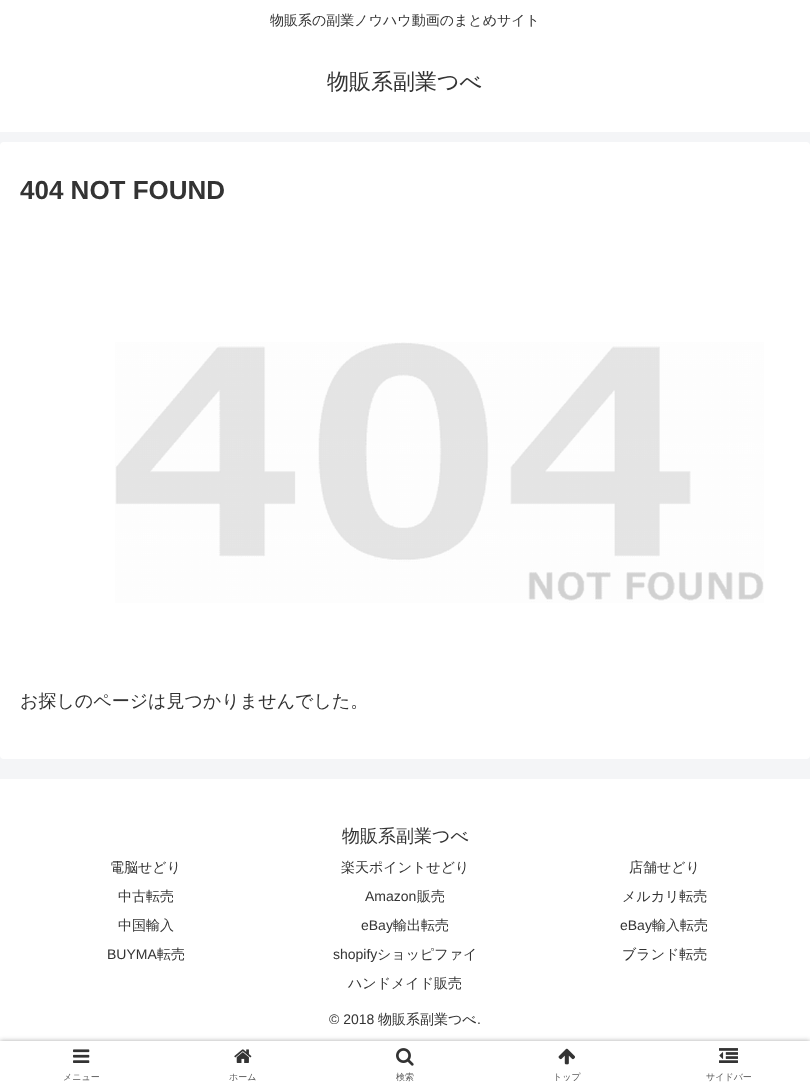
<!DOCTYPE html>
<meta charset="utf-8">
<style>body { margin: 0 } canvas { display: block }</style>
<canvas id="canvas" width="810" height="1091"></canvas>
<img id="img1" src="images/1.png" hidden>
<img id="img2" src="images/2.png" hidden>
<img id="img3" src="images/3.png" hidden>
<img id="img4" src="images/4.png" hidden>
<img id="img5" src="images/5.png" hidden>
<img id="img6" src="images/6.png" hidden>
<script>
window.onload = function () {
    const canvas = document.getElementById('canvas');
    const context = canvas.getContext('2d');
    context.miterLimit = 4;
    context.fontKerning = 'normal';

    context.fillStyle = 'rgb(244, 245, 247)';
    context.fillRect(0, 0, 810, 1091);
    context.fillStyle = 'rgb(255, 255, 255)';
    context.fillRect(0, 0, 810, 132);
    context.beginPath();
    context.roundRect(0, 142, 810, 617, 4);
    context.fill();
    context.drawImage(document.getElementById('img1'), 115, 342, 649, 261);
    context.fillRect(0, 779, 810, 262);
    context.fillStyle = 'rgb(169, 169, 169)';
    context.filter = 'blur(2.5px)';
    context.beginPath();
    context.rect(0, 1041, 810, 50);
    context.fill();
    context.filter = 'none';
    context.fillStyle = 'rgb(255, 255, 255)';
    context.fillRect(0, 1041, 810, 50);
    context.drawImage(document.getElementById('img2'), 73, 1049, 17, 14);
    context.drawImage(document.getElementById('img3'), 234, 1049, 18, 14);
    context.drawImage(document.getElementById('img4'), 396, 1048, 18, 18);
    context.drawImage(document.getElementById('img5'), 558, 1048, 17, 17);
    context.drawImage(document.getElementById('img6'), 719, 1048, 19, 15);
    context.font = '500 14px WenQuanYi Zen Hei';
    context.fillStyle = 'rgb(51, 51, 51)';
    context.fillText('物販系の副業ノウハウ動画のまとめサイト', 270, 25);
    context.font = '500 22px WenQuanYi Zen Hei';
    context.fillText('物販系副業つべ', 327, 89);
    context.font = 'bold 26px Liberation Sans';
    context.fillText('404 NOT FOUND', 20, 199);
    context.font = '500 18px WenQuanYi Zen Hei';
    context.fillText('お探しのページは見つかりませんでした。', 20, 707);
    context.fillText('物販系副業つべ', 342, 842);
    context.font = '500 14px WenQuanYi Zen Hei';
    context.fillText('電脳せどり', 110, 872);
    context.fillText('楽天ポイントせどり', 341, 872);
    context.fillText('店舗せどり', 629, 872);
    context.fillText('中古転売', 118, 901);
    context.font = '14px Liberation Sans';
    context.fillText('Amazon', 365, 901);
    context.font = '500 14px WenQuanYi Zen Hei';
    context.fillText('販売', 417, 901);
    context.fillText('メルカリ転売', 622, 901);
    context.fillText('中国輸入', 118, 930);
    context.font = '14px Liberation Sans';
    context.fillText('eBay', 361, 930);
    context.font = '500 14px WenQuanYi Zen Hei';
    context.fillText('輸出転売', 393, 930);
    context.font = '14px Liberation Sans';
    context.fillText('eBay', 620, 930);
    context.font = '500 14px WenQuanYi Zen Hei';
    context.fillText('輸入転売', 652, 930);
    context.font = '14px Liberation Sans';
    context.fillText('BUYMA', 107, 959);
    context.font = '500 14px WenQuanYi Zen Hei';
    context.fillText('転売', 157, 959);
    context.font = '14px Liberation Sans';
    context.fillText('shopify', 333, 959);
    context.font = '500 14px WenQuanYi Zen Hei';
    context.fillText('ショッピファイ', 377, 959);
    context.fillText('ブランド転売', 622, 959);
    context.fillText('ハンドメイド販売', 348, 988);
    context.font = '14px Liberation Sans';
    context.fillText('© 2018', 329, 1024);
    context.font = '500 14px WenQuanYi Zen Hei';
    context.fillText('物販系副業つべ', 378, 1024);
    context.font = '14px Liberation Sans';
    context.fillText('.', 477, 1024);
    context.font = '500 9px WenQuanYi Zen Hei';
    context.fillStyle = 'rgb(92, 92, 92)';
    context.fillText('メニュー', 63, 1080);
    context.fillText('ホーム', 229, 1080);
    context.fillText('検索', 396, 1080);
    context.fillText('トップ', 553, 1080);
    context.fillText('サイドバー', 706, 1080);
};
</script>
